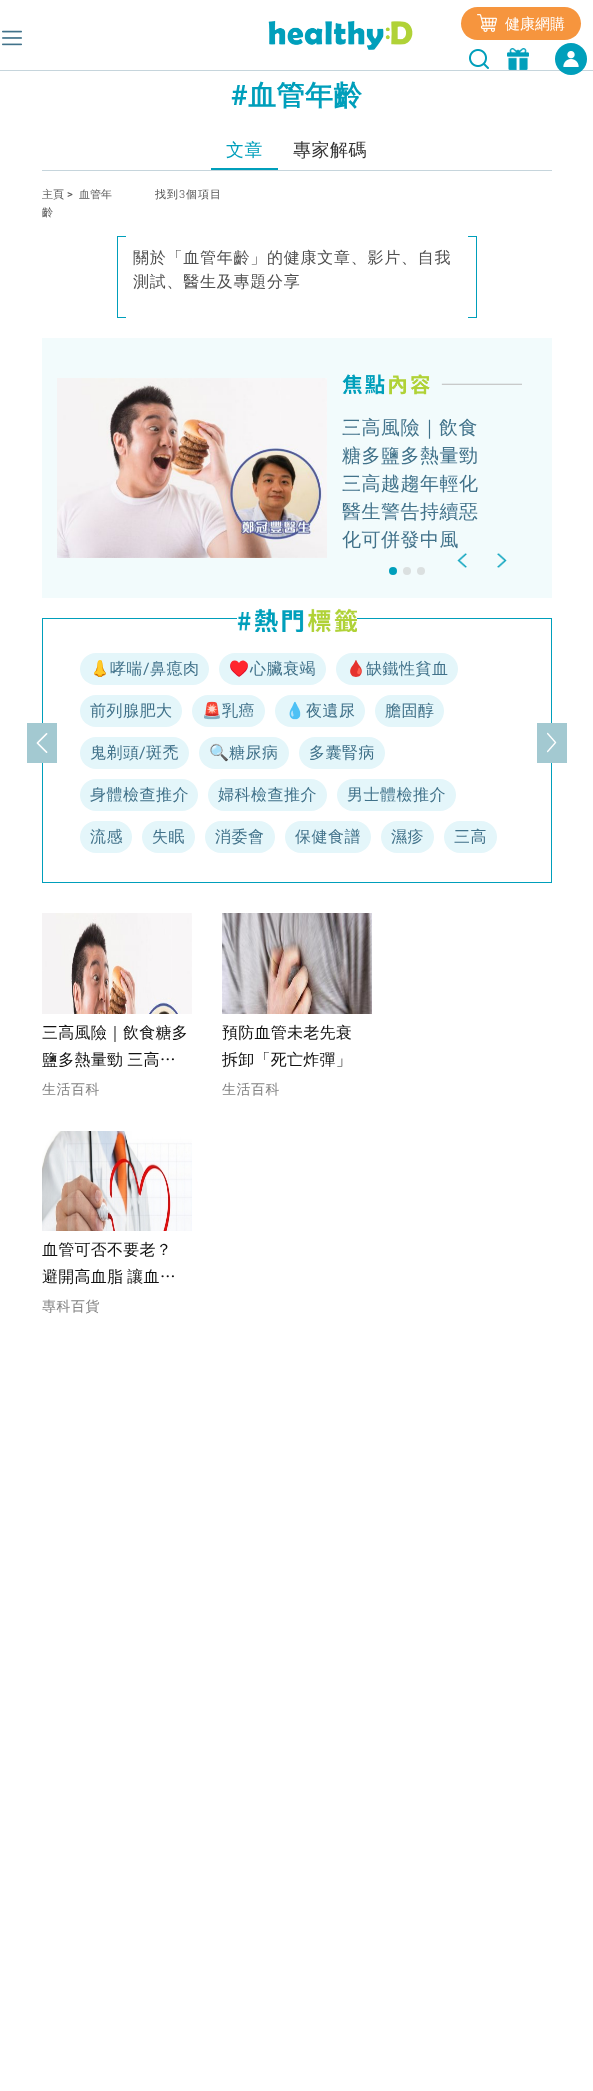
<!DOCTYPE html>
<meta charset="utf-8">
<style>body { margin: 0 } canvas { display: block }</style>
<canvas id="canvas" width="593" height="2091"></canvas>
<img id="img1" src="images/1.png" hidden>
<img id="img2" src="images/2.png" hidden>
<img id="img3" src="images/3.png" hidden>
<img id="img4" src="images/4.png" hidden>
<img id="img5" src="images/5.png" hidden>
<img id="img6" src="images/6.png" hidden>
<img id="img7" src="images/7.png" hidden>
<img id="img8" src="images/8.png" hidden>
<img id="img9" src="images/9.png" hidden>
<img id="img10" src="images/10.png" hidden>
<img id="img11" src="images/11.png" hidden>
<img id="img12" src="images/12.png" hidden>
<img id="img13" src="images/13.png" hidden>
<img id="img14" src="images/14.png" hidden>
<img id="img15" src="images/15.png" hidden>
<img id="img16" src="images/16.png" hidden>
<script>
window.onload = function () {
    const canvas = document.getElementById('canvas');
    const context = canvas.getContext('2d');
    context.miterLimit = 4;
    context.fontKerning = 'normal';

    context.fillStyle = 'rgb(255, 255, 255)';
    context.fillRect(0, 0, 593, 2091);
    context.fillStyle = 'rgb(198, 213, 220)';
    context.fillRect(0, 70, 593, 1);
    context.drawImage(document.getElementById('img1'), 2, 30, 20, 16);
    context.drawImage(document.getElementById('img2'), 268, 20, 145, 30);
    context.fillStyle = 'rgb(246, 149, 62)';
    context.beginPath();
    context.roundRect(461, 7, 120, 33, 16.5);
    context.fill();
    context.drawImage(document.getElementById('img3'), 477, 14, 20, 18);
    context.drawImage(document.getElementById('img4'), 469, 49, 20, 20);
    context.drawImage(document.getElementById('img5'), 507, 48, 22, 22);
    context.fillStyle = 'rgb(0, 159, 187)';
    context.beginPath();
    context.arc(571, 59, 16, 0, 2 * Math.PI);
    context.fill();
    context.drawImage(document.getElementById('img6'), 563, 51, 16, 16);
    context.fillStyle = 'rgb(198, 213, 220)';
    context.fillRect(42, 170, 510, 1);
    context.fillStyle = 'rgb(0, 159, 187)';
    context.fillRect(211, 168, 67, 2);
    context.fillRect(468, 317, 8, 1);
    context.fillRect(118, 317, 8, 1);
    context.fillRect(468, 236, 8, 1);
    context.fillRect(118, 236, 8, 1);
    context.fillRect(476, 236, 1, 82);
    context.fillRect(117, 236, 1, 82);
    context.fillStyle = 'rgb(242, 251, 252)';
    context.fillRect(42, 338, 510, 260);
    context.drawImage(document.getElementById('img7'), 57, 378, 270, 180);
    context.drawImage(document.getElementById('img8'), 342, 374, 180, 21);
    context.drawImage(document.getElementById('img9'), 457, 553, 10, 15);
    context.drawImage(document.getElementById('img10'), 497, 553, 10, 15);
    context.fillStyle = 'rgb(0, 159, 187)';
    context.beginPath();
    context.arc(393, 571, 4, 0, 2 * Math.PI);
    context.fill();
    context.fillStyle = 'rgb(219, 224, 224)';
    context.beginPath();
    context.arc(407, 571, 4, 0, 2 * Math.PI);
    context.fill();
    context.beginPath();
    context.arc(421, 571, 4, 0, 2 * Math.PI);
    context.fill();
    context.strokeStyle = 'rgb(0, 159, 187)';
    context.strokeRect(42.5, 618.5, 509, 264);
    context.drawImage(document.getElementById('img11'), 237, 608, 120, 24);
    context.drawImage(document.getElementById('img12'), 27, 723, 30, 40);
    context.fillStyle = 'rgb(228, 246, 250)';
    context.beginPath();
    context.roundRect(80, 653, 129, 32, 16);
    context.fill();
    context.beginPath();
    context.roundRect(219, 653, 107, 32, 16);
    context.fill();
    context.beginPath();
    context.roundRect(336, 653, 122, 32, 16);
    context.fill();
    context.beginPath();
    context.roundRect(80, 695, 102, 32, 16);
    context.fill();
    context.beginPath();
    context.roundRect(192, 695, 73, 32, 16);
    context.fill();
    context.beginPath();
    context.roundRect(275, 695, 90, 32, 16);
    context.fill();
    context.beginPath();
    context.roundRect(375, 695, 69, 32, 16);
    context.fill();
    context.beginPath();
    context.roundRect(80, 737, 109, 32, 16);
    context.fill();
    context.beginPath();
    context.roundRect(199, 737, 90, 32, 16);
    context.fill();
    context.beginPath();
    context.roundRect(299, 737, 86, 32, 16);
    context.fill();
    context.beginPath();
    context.roundRect(80, 779, 118, 32, 16);
    context.fill();
    context.beginPath();
    context.roundRect(208, 779, 119, 32, 16);
    context.fill();
    context.beginPath();
    context.roundRect(337, 779, 119, 32, 16);
    context.fill();
    context.beginPath();
    context.roundRect(80, 821, 52, 32, 16);
    context.fill();
    context.beginPath();
    context.roundRect(142, 821, 53, 32, 16);
    context.fill();
    context.beginPath();
    context.roundRect(205, 821, 70, 32, 16);
    context.fill();
    context.beginPath();
    context.roundRect(285, 821, 86, 32, 16);
    context.fill();
    context.beginPath();
    context.roundRect(381, 821, 53, 32, 16);
    context.fill();
    context.beginPath();
    context.roundRect(444, 821, 53, 32, 16);
    context.fill();
    context.drawImage(document.getElementById('img13'), 537, 723, 30, 40);
    context.drawImage(document.getElementById('img14'), 42, 913, 150, 101);
    context.drawImage(document.getElementById('img15'), 222, 913, 150, 101);
    context.drawImage(document.getElementById('img16'), 42, 1131, 150, 100);
    context.font = '500 15px WenQuanYi Zen Hei';
    context.fillStyle = 'rgb(255, 255, 255)';
    context.fillText('健康網購', 505, 29);
    context.letterSpacing = '0.5px';
    context.font = 'bold 28px Roboto';
    context.fillStyle = 'rgb(0, 159, 187)';
    context.fillText('#', 231, 105);
    context.font = 'bold 28px WenQuanYi Zen Hei';
    context.fillText('血管年齡', 248, 105);
    context.font = '500 18px WenQuanYi Zen Hei';
    context.fillText('文章', 226, 156);
    context.fillStyle = 'rgb(51, 51, 51)';
    context.fillText('專家解碼', 293, 156);
    context.letterSpacing = '0px';
    context.font = '500 11px WenQuanYi Zen Hei';
    context.fillStyle = 'rgb(89, 89, 89)';
    context.fillText('主頁', 42, 198);
    context.font = '500 11px Roboto';
    context.fillText('>', 67, 198);
    context.font = '500 11px WenQuanYi Zen Hei';
    context.fillText('血管年', 79, 198);
    context.fillText('齡', 42, 216);
    context.letterSpacing = '1px';
    context.fillStyle = 'rgb(79, 79, 79)';
    context.fillText('找到', 155, 198);
    context.font = '300 11px Roboto';
    context.fillText('3', 179, 198);
    context.font = '500 11px WenQuanYi Zen Hei';
    context.fillText('個項目', 186, 198);
    context.letterSpacing = '0.75px';
    context.font = '500 16px WenQuanYi Zen Hei';
    context.fillText('關於「血管年齡」的健康文章、影片、自我', 133, 263);
    context.fillText('測試、醫生及專題分享', 133, 287);
    context.letterSpacing = '0.5px';
    context.font = '500 19px WenQuanYi Zen Hei';
    context.fillStyle = 'rgb(65, 114, 138)';
    context.fillText('三高風險｜飲食', 342, 434);
    context.fillText('糖多鹽多熱量勁', 342, 462);
    context.fillText('三高越趨年輕化', 342, 490);
    context.fillText('醫生警告持續惡', 342, 518);
    context.fillText('化可併發中風', 342, 546);
    context.font = '16px Noto Color Emoji';
    context.fillText('👃', 90, 674);
    context.font = '500 16px WenQuanYi Zen Hei';
    context.fillText('哮喘', 110, 674);
    context.font = '16px Roboto';
    context.fillText('/', 143, 674);
    context.font = '500 16px WenQuanYi Zen Hei';
    context.fillText('鼻瘜肉', 150, 674);
    context.font = '16px Noto Color Emoji';
    context.fillText('♥️', 229, 674);
    context.font = '500 16px WenQuanYi Zen Hei';
    context.fillText('心臟衰竭', 250, 674);
    context.font = '16px Noto Color Emoji';
    context.fillText('🩸', 346, 674);
    context.font = '500 16px WenQuanYi Zen Hei';
    context.fillText('缺鐵性貧血', 366, 674);
    context.fillText('前列腺肥大', 90, 716);
    context.font = '16px Noto Color Emoji';
    context.fillText('🚨', 202, 716);
    context.font = '500 16px WenQuanYi Zen Hei';
    context.fillText('乳癌', 222, 716);
    context.font = '16px Noto Color Emoji';
    context.fillText('💧', 285, 716);
    context.font = '500 16px WenQuanYi Zen Hei';
    context.fillText('夜遺尿', 306, 716);
    context.fillText('膽固醇', 385, 716);
    context.fillText('鬼剃頭', 90, 758);
    context.font = '16px Roboto';
    context.fillText('/', 139, 758);
    context.font = '500 16px WenQuanYi Zen Hei';
    context.fillText('斑禿', 146, 758);
    context.font = '16px Noto Color Emoji';
    context.fillText('🔍', 209, 758);
    context.font = '500 16px WenQuanYi Zen Hei';
    context.fillText('糖尿病', 229, 758);
    context.fillText('多囊腎病', 309, 758);
    context.fillText('身體檢查推介', 90, 800);
    context.fillText('婦科檢查推介', 218, 800);
    context.fillText('男士體檢推介', 347, 800);
    context.fillText('流感', 90, 842);
    context.fillText('失眠', 152, 842);
    context.fillText('消委會', 215, 842);
    context.fillText('保健食譜', 295, 842);
    context.fillText('濕疹', 391, 842);
    context.fillText('三高', 454, 842);
    context.letterSpacing = '0.25px';
    context.fillStyle = 'rgb(17, 17, 17)';
    context.fillText('三高風險｜飲食糖多', 42, 1038);
    context.wordSpacing = '-1px';
    context.fillText('鹽多熱量勁 三高…', 42, 1065);
    context.letterSpacing = '0.5px';
    context.wordSpacing = '0px';
    context.font = '500 14px WenQuanYi Zen Hei';
    context.fillStyle = 'rgb(130, 130, 130)';
    context.fillText('生活百科', 42, 1094);
    context.letterSpacing = '0.25px';
    context.font = '500 16px WenQuanYi Zen Hei';
    context.fillStyle = 'rgb(17, 17, 17)';
    context.fillText('預防血管未老先衰', 222, 1038);
    context.save();
    context.beginPath();
    context.rect(222, 1019, 150, 54);
    context.clip();
    context.fillText('拆卸「死亡炸彈」', 222, 1065);
    context.restore();
    context.letterSpacing = '0.5px';
    context.font = '500 14px WenQuanYi Zen Hei';
    context.fillStyle = 'rgb(130, 130, 130)';
    context.fillText('生活百科', 222, 1094);
    context.letterSpacing = '0.25px';
    context.font = '500 16px WenQuanYi Zen Hei';
    context.fillStyle = 'rgb(17, 17, 17)';
    context.fillText('血管可否不要老？', 42, 1255);
    context.wordSpacing = '-1px';
    context.fillText('避開高血脂 讓血…', 42, 1282);
    context.letterSpacing = '0.5px';
    context.wordSpacing = '0px';
    context.font = '500 14px WenQuanYi Zen Hei';
    context.fillStyle = 'rgb(130, 130, 130)';
    context.fillText('專科百貨', 42, 1311);
};
</script>
